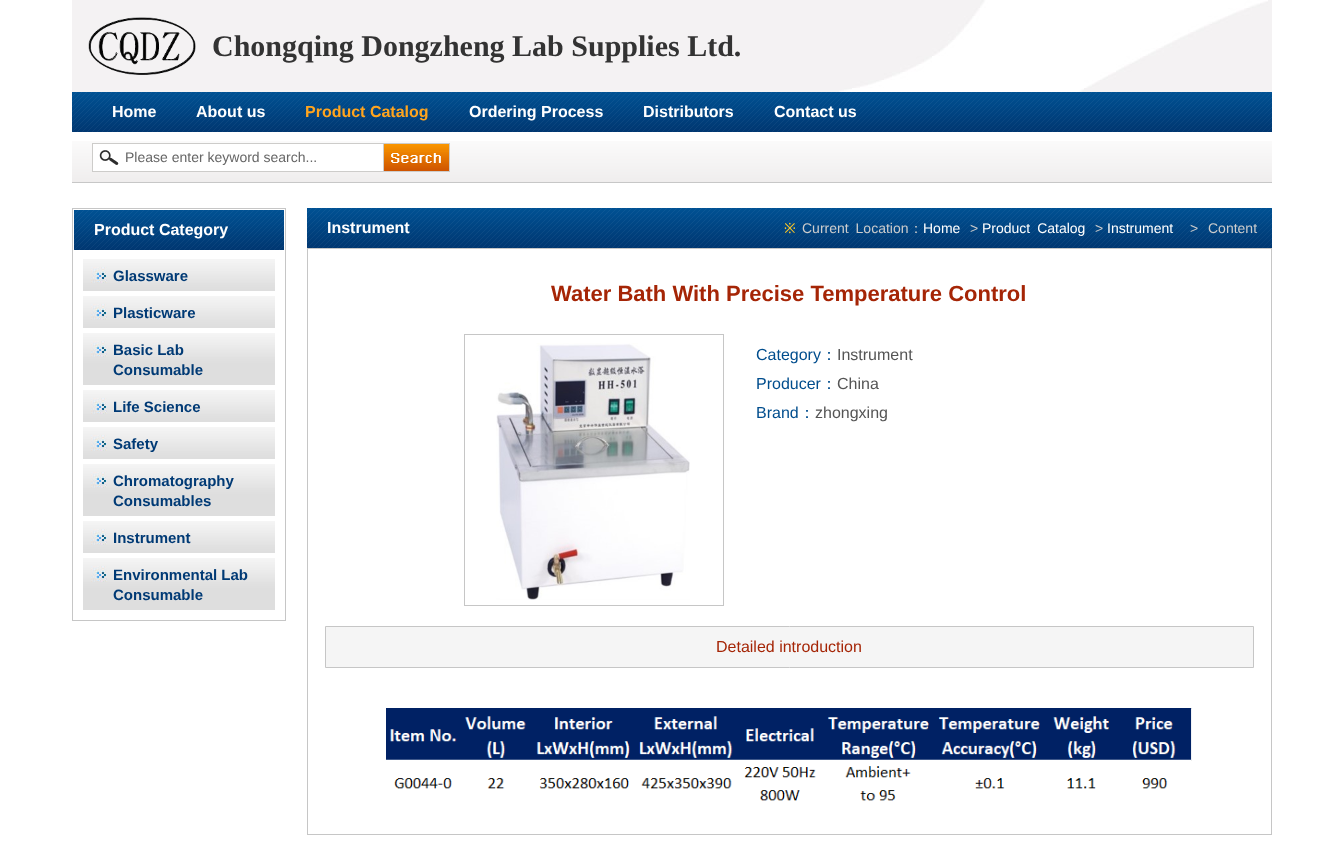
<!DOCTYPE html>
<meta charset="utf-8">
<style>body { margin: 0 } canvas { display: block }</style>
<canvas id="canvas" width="1343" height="850"></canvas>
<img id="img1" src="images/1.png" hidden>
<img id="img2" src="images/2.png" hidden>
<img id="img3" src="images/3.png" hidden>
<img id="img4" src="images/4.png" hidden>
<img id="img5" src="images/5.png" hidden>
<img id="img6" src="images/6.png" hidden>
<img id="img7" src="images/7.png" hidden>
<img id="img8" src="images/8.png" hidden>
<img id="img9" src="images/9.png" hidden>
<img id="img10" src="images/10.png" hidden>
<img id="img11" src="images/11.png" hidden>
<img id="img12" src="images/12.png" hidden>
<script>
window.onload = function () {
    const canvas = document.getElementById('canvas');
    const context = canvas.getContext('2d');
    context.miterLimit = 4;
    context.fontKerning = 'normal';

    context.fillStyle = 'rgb(255, 255, 255)';
    context.fillRect(0, 0, 1343, 850);
    context.fillStyle = 'rgb(244, 242, 243)';
    context.fillRect(72, 0, 1200, 92);
    context.drawImage(document.getElementById('img1'), 839, 0, 429, 92);
    context.drawImage(document.getElementById('img2'), 88, 17, 108, 58);
    context.drawImage(document.getElementById('img3'), 72, 92, 1200, 40);
    context.drawImage(document.getElementById('img4'), 72, 141, 1200, 42);
    context.fillStyle = 'rgb(255, 255, 255)';
    context.fillRect(93, 144, 290, 27);
    context.strokeStyle = 'rgb(205, 204, 202)';
    context.strokeRect(92.5, 143.5, 357, 28);
    context.drawImage(document.getElementById('img5'), 99, 150, 20, 15);
    context.fillStyle = 'rgb(205, 204, 202)';
    context.fillRect(383, 144, 1, 27);
    context.drawImage(document.getElementById('img6'), 384, 144, 65, 27);
    context.strokeStyle = 'rgb(198, 198, 198)';
    context.strokeRect(72.5, 208.5, 213, 412);
    context.drawImage(document.getElementById('img7'), 74, 210, 210, 40);
    context.drawImage(document.getElementById('img8'), 83, 259, 192, 32);
    context.drawImage(document.getElementById('img8'), 83, 296, 192, 32);
    context.drawImage(document.getElementById('img9'), 83, 333, 192, 52);
    context.drawImage(document.getElementById('img8'), 83, 390, 192, 32);
    context.drawImage(document.getElementById('img8'), 83, 427, 192, 32);
    context.drawImage(document.getElementById('img9'), 83, 464, 192, 52);
    context.drawImage(document.getElementById('img8'), 83, 521, 192, 32);
    context.drawImage(document.getElementById('img9'), 83, 558, 192, 52);
    context.drawImage(document.getElementById('img10'), 307, 208, 965, 40);
    context.strokeRect(307.5, 248.5, 964, 586);
    context.strokeRect(464.5, 334.5, 259, 271);
    context.drawImage(document.getElementById('img11'), 496, 343, 194, 257);
    context.fillStyle = 'rgb(245, 245, 245)';
    context.beginPath();
    context.rect(325.5, 626.5, 928, 41);
    context.fill();
    context.stroke();
    context.drawImage(document.getElementById('img12'), 386, 708, 806, 93);
    context.font = 'bold 30px Liberation Serif';
    context.fillStyle = 'rgb(51, 51, 51)';
    context.fillText('Chongqing Dongzheng Lab Supplies Ltd.', 212, 56);
    context.font = 'bold 16px Liberation Sans';
    context.fillStyle = 'rgb(255, 255, 255)';
    context.fillText('Home', 112, 117);
    context.fillText('About us', 196, 117);
    context.fillStyle = 'rgb(255, 165, 30)';
    context.fillText('Product Catalog', 305, 117);
    context.fillStyle = 'rgb(255, 255, 255)';
    context.fillText('Ordering Process', 469, 117);
    context.fillText('Distributors', 643, 117);
    context.fillText('Contact us', 774, 117);
    context.font = '14px Liberation Sans';
    context.fillStyle = 'rgb(102, 102, 102)';
    context.fillText('Please enter keyword search...', 125, 162);
    context.font = 'bold 16px Liberation Sans';
    context.fillStyle = 'rgb(255, 255, 255)';
    context.fillText('Product Category', 94, 235);
    context.font = 'bold 15px Liberation Sans';
    context.fillStyle = 'rgb(0, 58, 117)';
    context.fillText('Glassware', 113, 281);
    context.fillText('Plasticware', 113, 318);
    context.fillText('Basic Lab', 113, 355);
    context.fillText('Consumable', 113, 375);
    context.fillText('Life Science', 113, 412);
    context.fillText('Safety', 113, 449);
    context.fillText('Chromatography', 113, 486);
    context.fillText('Consumables', 113, 506);
    context.fillText('Instrument', 113, 543);
    context.fillText('Environmental Lab', 113, 580);
    context.fillText('Consumable', 113, 600);
    context.font = 'bold 16px Liberation Sans';
    context.fillStyle = 'rgb(255, 255, 255)';
    context.fillText('Instrument', 327, 233);
    context.font = '14px Noto Sans';
    context.fillStyle = 'rgb(255, 201, 38)';
    context.fillText('※', 784, 233);
    context.wordSpacing = '3px';
    context.font = '14px Liberation Sans';
    context.fillStyle = 'rgb(204, 204, 204)';
    context.fillText('Current Location', 802, 233);
    context.wordSpacing = '0px';
    context.font = '500 14px WenQuanYi Zen Hei';
    context.fillText('：', 909, 233);
    context.font = '14px Liberation Sans';
    context.fillStyle = 'rgb(255, 255, 255)';
    context.fillText('Home', 923, 233);
    context.fillStyle = 'rgb(204, 204, 204)';
    context.fillText('>', 970, 233);
    context.wordSpacing = '3px';
    context.fillStyle = 'rgb(255, 255, 255)';
    context.fillText('Product Catalog', 982, 233);
    context.wordSpacing = '0px';
    context.fillStyle = 'rgb(204, 204, 204)';
    context.fillText('>', 1095, 233);
    context.fillStyle = 'rgb(255, 255, 255)';
    context.fillText('Instrument', 1107, 233);
    context.fillStyle = 'rgb(204, 204, 204)';
    context.fillText('>', 1190, 233);
    context.fillText('Content', 1208, 233);
    context.font = 'bold 22px Liberation Sans';
    context.fillStyle = 'rgb(165, 37, 6)';
    context.fillText('Water Bath With Precise Temperature Control', 551, 301);
    context.font = '16px Liberation Sans';
    context.fillStyle = 'rgb(0, 77, 141)';
    context.fillText('Category', 756, 360);
    context.font = '500 16px WenQuanYi Zen Hei';
    context.fillText('：', 821, 360);
    context.font = '16px Liberation Sans';
    context.fillStyle = 'rgb(85, 85, 85)';
    context.fillText('Instrument', 837, 360);
    context.fillStyle = 'rgb(0, 77, 141)';
    context.fillText('Producer', 756, 389);
    context.font = '500 16px WenQuanYi Zen Hei';
    context.fillText('：', 821, 389);
    context.font = '16px Liberation Sans';
    context.fillStyle = 'rgb(85, 85, 85)';
    context.fillText('China', 837, 389);
    context.fillStyle = 'rgb(0, 77, 141)';
    context.fillText('Brand', 756, 418);
    context.font = '500 16px WenQuanYi Zen Hei';
    context.fillText('：', 799, 418);
    context.font = '16px Liberation Sans';
    context.fillStyle = 'rgb(85, 85, 85)';
    context.fillText('zhongxing', 815, 418);
    context.fillStyle = 'rgb(165, 37, 6)';
    context.fillText('Detailed introduction', 716, 652);
};
</script>
